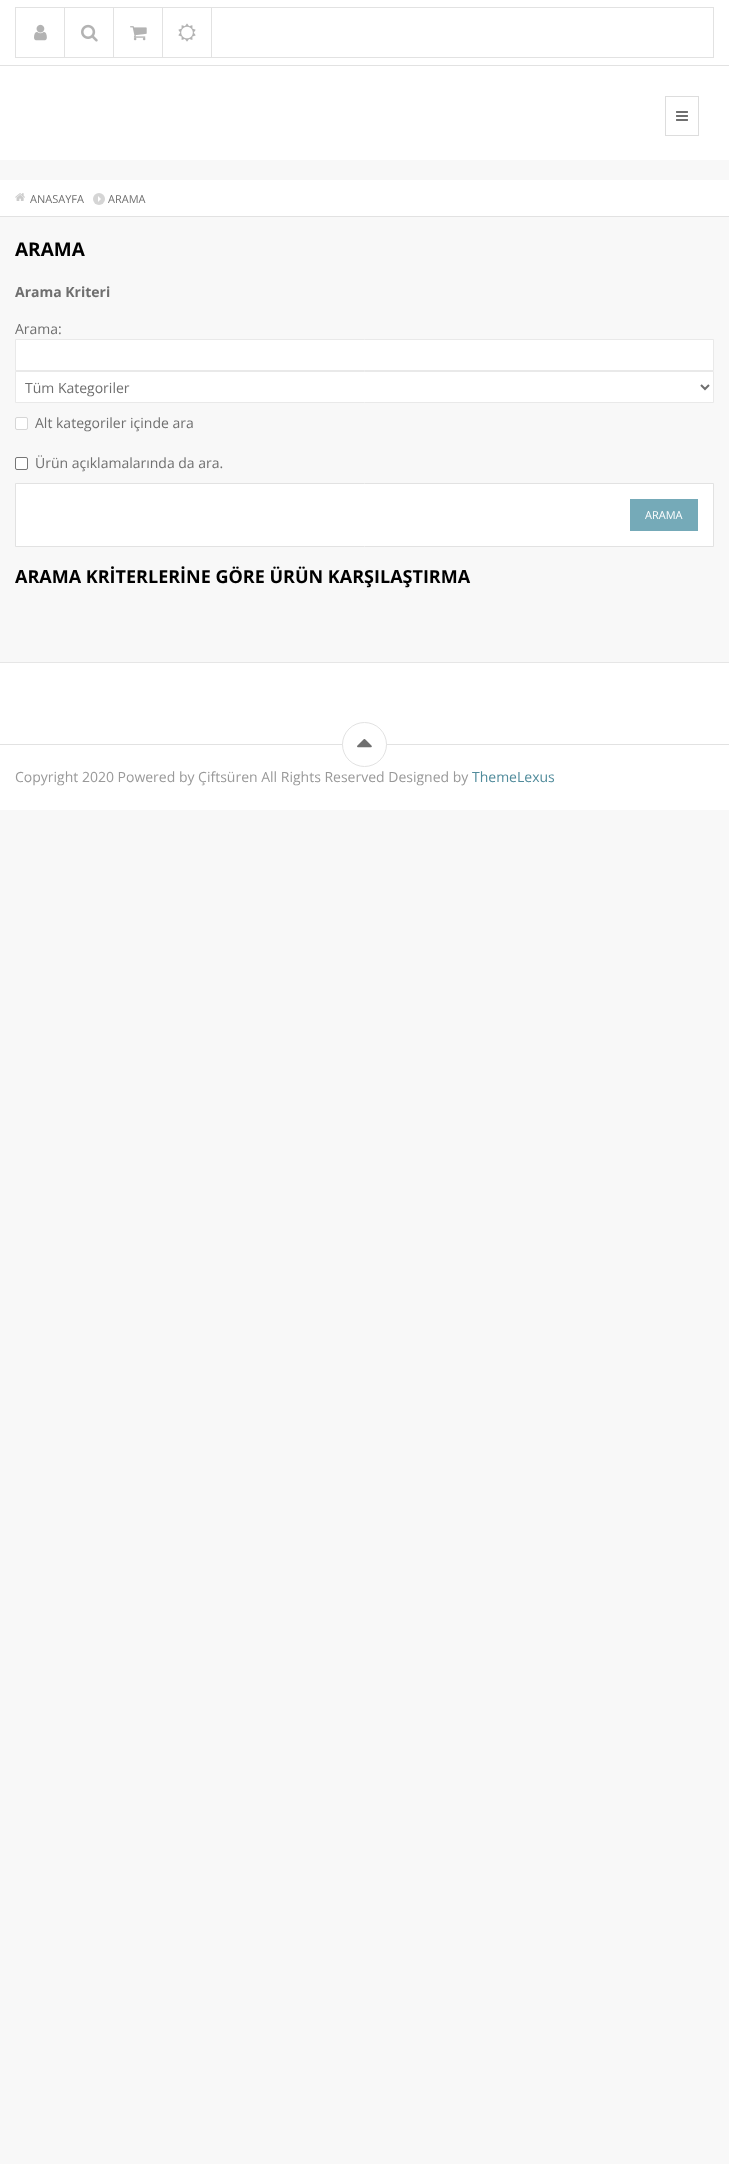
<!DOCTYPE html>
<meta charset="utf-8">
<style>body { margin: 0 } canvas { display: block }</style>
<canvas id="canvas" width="729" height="2164"></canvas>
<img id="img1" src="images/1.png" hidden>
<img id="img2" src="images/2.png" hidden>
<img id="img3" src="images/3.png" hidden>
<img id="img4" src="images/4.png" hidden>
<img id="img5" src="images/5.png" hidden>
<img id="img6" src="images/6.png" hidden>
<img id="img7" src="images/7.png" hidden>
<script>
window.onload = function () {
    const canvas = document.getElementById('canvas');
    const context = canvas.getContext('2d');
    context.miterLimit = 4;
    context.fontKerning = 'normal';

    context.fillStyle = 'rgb(248, 248, 248)';
    context.fillRect(0, 0, 729, 2164);
    context.fillStyle = 'rgb(255, 255, 255)';
    context.fillRect(0, 0, 729, 65);
    context.fillStyle = 'rgb(226, 226, 226)';
    context.fillRect(0, 65, 729, 1);
    context.strokeStyle = 'rgb(226, 226, 226)';
    context.strokeRect(15.5, 7.5, 698, 50);
    context.fillRect(64, 8, 1, 49);
    context.drawImage(document.getElementById('img1'), 34, 24, 13, 17);
    context.fillRect(113, 8, 1, 49);
    context.drawImage(document.getElementById('img2'), 81, 24, 17, 18);
    context.fillRect(162, 8, 1, 49);
    context.drawImage(document.getElementById('img3'), 130, 26, 17, 15);
    context.fillRect(211, 8, 1, 49);
    context.drawImage(document.getElementById('img4'), 178, 23, 18, 19);
    context.fillStyle = 'rgb(255, 255, 255)';
    context.fillRect(0, 66, 729, 94);
    context.strokeStyle = 'rgb(221, 221, 221)';
    context.strokeRect(665.5, 96.5, 33, 39);
    context.drawImage(document.getElementById('img5'), 676, 111, 12, 10);
    context.fillRect(0, 180, 729, 36);
    context.fillStyle = 'rgb(226, 226, 226)';
    context.fillRect(0, 216, 729, 1);
    context.drawImage(document.getElementById('img6'), 15, 193, 10, 8);
    context.fillStyle = 'rgb(213, 213, 213)';
    context.beginPath();
    context.arc(99, 199, 6, 0, 2 * Math.PI);
    context.fill();
    context.fillStyle = 'rgb(255, 255, 255)';
    context.beginPath();
    context.moveTo(98, 202);
    context.lineTo(98, 196);
    context.lineTo(101, 199);
    context.closePath();
    context.fill();
    context.beginPath();
    context.rect(15.5, 339.5, 698, 31);
    context.fill();
    context.strokeStyle = 'rgb(233, 233, 233)';
    context.stroke();
    context.beginPath();
    context.rect(15.5, 371.5, 698, 31);
    context.fill();
    context.stroke();
    context.beginPath();
    context.moveTo(701, 385);
    context.lineTo(705, 389);
    context.lineTo(709, 385);
    context.strokeStyle = 'rgb(111, 111, 111)';
    context.lineWidth = 2;
    context.stroke();
    context.beginPath();
    context.roundRect(15.5, 417.5, 12, 12, 1.5);
    context.fill();
    context.strokeStyle = 'rgb(214, 214, 214)';
    context.lineWidth = 1;
    context.stroke();
    context.beginPath();
    context.roundRect(15.5, 457.5, 12, 12, 1.5);
    context.fill();
    context.strokeStyle = 'rgb(118, 118, 118)';
    context.stroke();
    context.beginPath();
    context.rect(15.5, 483.5, 698, 63);
    context.fill();
    context.strokeStyle = 'rgb(226, 226, 226)';
    context.stroke();
    context.fillStyle = 'rgb(117, 170, 184)';
    context.fillRect(630, 499, 68, 32);
    context.fillStyle = 'rgb(255, 255, 255)';
    context.fillRect(0, 663, 729, 147);
    context.fillStyle = 'rgb(230, 230, 230)';
    context.fillRect(0, 662, 729, 1);
    context.fillStyle = 'rgb(226, 226, 226)';
    context.fillRect(0, 744, 729, 1);
    context.fillStyle = 'rgb(255, 255, 255)';
    context.beginPath();
    context.arc(364.5, 744.5, 22, 0, 2 * Math.PI);
    context.fill();
    context.stroke();
    context.drawImage(document.getElementById('img7'), 357, 739, 15, 9);
    context.font = '11px Open Sans';
    context.fillStyle = 'rgb(111, 111, 111)';
    context.fillText('ANASAYFA', 30, 203);
    context.fillText('ARAMA', 108, 203);
    context.font = 'bold 19px Open Sans';
    context.fillStyle = 'rgb(0, 0, 0)';
    context.fillText('ARAMA', 15, 256);
    context.font = 'bold 14px Open Sans';
    context.fillStyle = 'rgb(111, 111, 111)';
    context.fillText('Arama Kriteri', 15, 297);
    context.font = '14px Open Sans';
    context.fillText('Arama:', 15, 334);
    context.fillText('Tüm Kategoriler', 25, 393);
    context.fillText('Alt kategoriler içinde ara', 35, 428);
    context.fillText('Ürün açıklamalarında da ara.', 35, 468);
    context.font = '11px Open Sans';
    context.fillStyle = 'rgb(255, 255, 255)';
    context.fillText('ARAMA', 645, 519);
    context.font = 'bold 18px Open Sans';
    context.fillStyle = 'rgb(0, 0, 0)';
    context.fillText('ARAMA KRİTERLERİNE GÖRE ÜRÜN KARŞILAŞTIRMA', 15, 583);
    context.font = '14px Open Sans';
    context.fillStyle = 'rgb(153, 153, 153)';
    context.fillText('Copyright 2020 Powered by Çiftsüren All Rights Reserved Designed by', 15, 782);
    context.fillStyle = 'rgb(80, 139, 155)';
    context.fillText('ThemeLexus', 472, 782);
};
</script>
